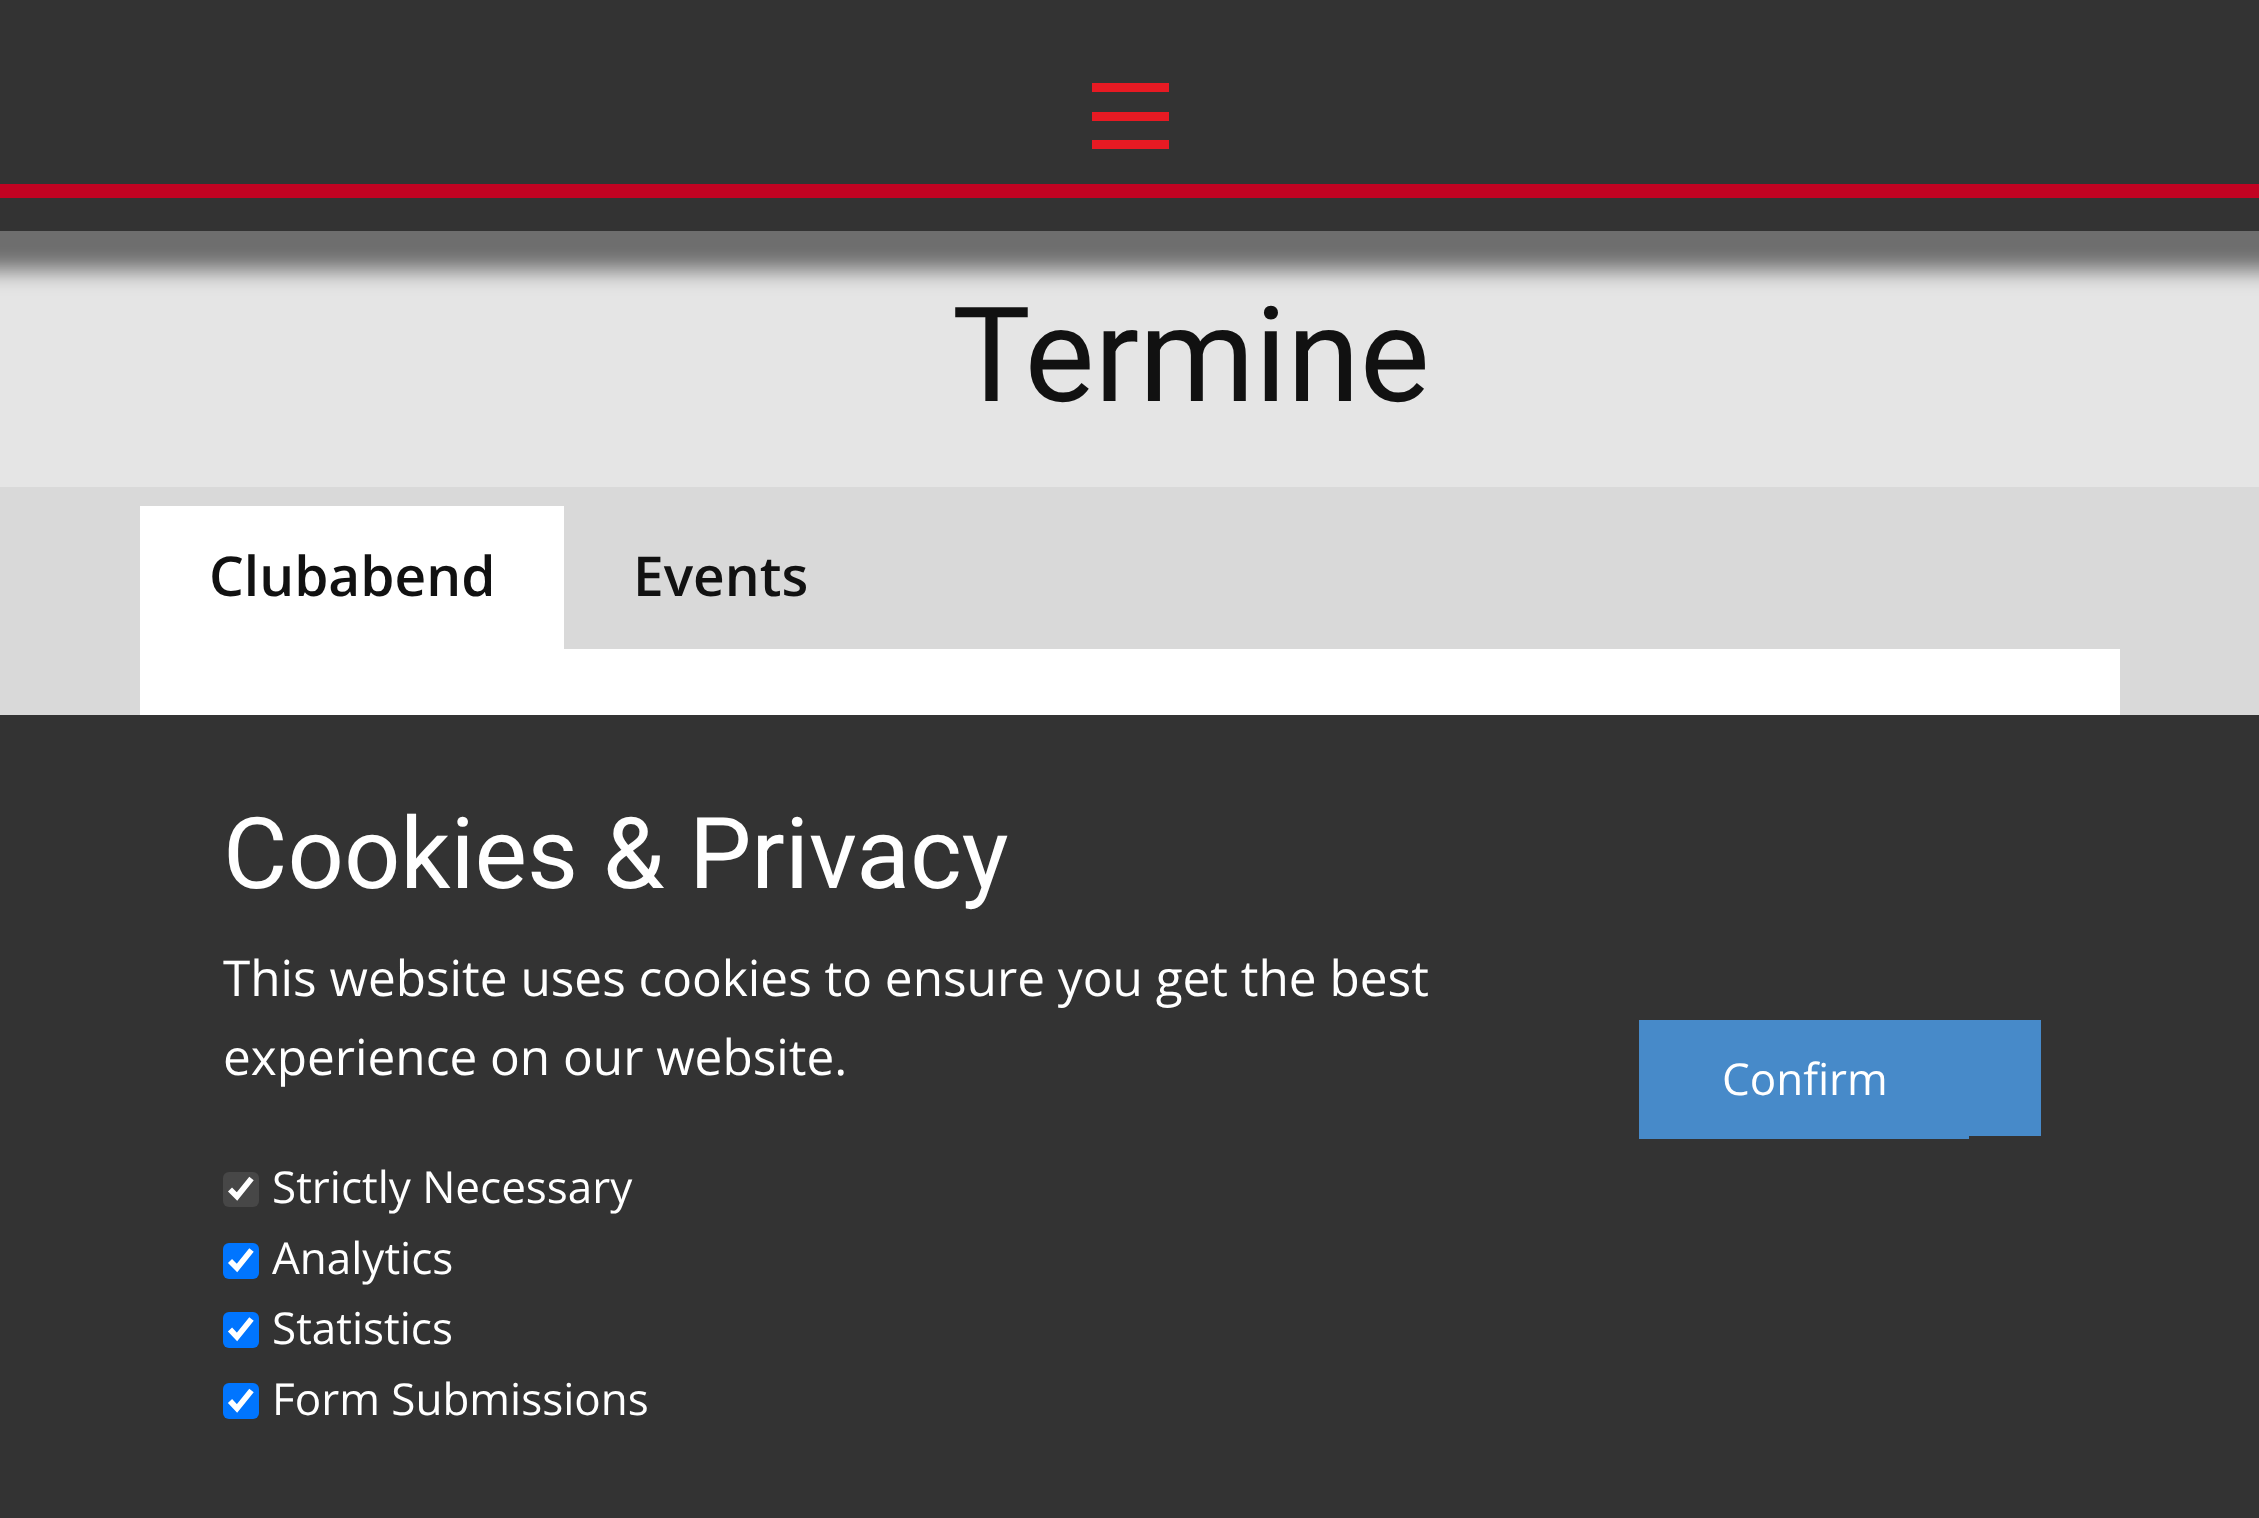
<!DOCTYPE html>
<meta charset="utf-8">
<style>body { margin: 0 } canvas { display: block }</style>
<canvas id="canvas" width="2259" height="1518"></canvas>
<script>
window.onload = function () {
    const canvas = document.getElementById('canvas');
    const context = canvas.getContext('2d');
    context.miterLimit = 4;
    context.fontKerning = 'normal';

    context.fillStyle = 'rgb(229, 229, 229)';
    context.fillRect(0, 0, 2259, 1518);
    context.fillStyle = 'rgba(0, 0, 0, 0.52)';
    context.filter = 'blur(11px)';
    context.beginPath();
    context.rect(-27, -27, 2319, 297);
    context.fill();
    context.filter = 'none';
    context.fillStyle = 'rgb(51, 51, 51)';
    context.fillRect(0, 0, 2259, 231);
    context.fillStyle = 'rgb(231, 26, 35)';
    context.fillRect(1092, 83, 77, 9);
    context.fillRect(1092, 112, 77, 9);
    context.fillRect(1092, 140, 77, 9);
    context.fillStyle = 'rgb(194, 3, 34)';
    context.fillRect(0, 184, 2259, 14);
    context.fillStyle = 'rgb(217, 217, 217)';
    context.fillRect(0, 487, 2259, 228);
    context.fillStyle = 'rgb(255, 255, 255)';
    context.fillRect(140, 506, 424, 143);
    context.fillRect(140, 649, 1980, 66);
    context.fillStyle = 'rgb(51, 51, 51)';
    context.fillRect(0, 715, 2259, 803);
    context.fillStyle = 'rgb(71, 71, 71)';
    context.beginPath();
    context.roundRect(223, 1172, 36, 35, 6);
    context.fill();
    context.beginPath();
    context.moveTo(230, 1189.5);
    context.lineTo(237, 1196.5);
    context.lineTo(251.5, 1178.5);
    context.strokeStyle = 'rgb(255, 255, 255)';
    context.lineWidth = 5.7;
    context.stroke();
    context.fillStyle = 'rgb(0, 117, 255)';
    context.beginPath();
    context.roundRect(223, 1243, 36, 36, 6);
    context.fill();
    context.beginPath();
    context.moveTo(230, 1261);
    context.lineTo(237, 1268);
    context.lineTo(251.5, 1250);
    context.stroke();
    context.beginPath();
    context.roundRect(223, 1312, 36, 36, 6);
    context.fill();
    context.beginPath();
    context.moveTo(230, 1329.5);
    context.lineTo(237, 1337);
    context.lineTo(251.5, 1319);
    context.stroke();
    context.beginPath();
    context.roundRect(223, 1383, 36, 36, 6);
    context.fill();
    context.beginPath();
    context.moveTo(230, 1401);
    context.lineTo(237, 1408.5);
    context.lineTo(251.5, 1390.5);
    context.stroke();
    context.fillStyle = 'rgb(71, 138, 201)';
    context.fillRect(1639, 1020, 330, 119);
    context.fillRect(1969, 1020, 72, 116);
    context.font = '132px Roboto';
    context.fillStyle = 'rgb(17, 17, 17)';
    context.fillText('Termine', 952, 401);
    context.font = '600 55px Open Sans';
    context.fillText('Clubabend', 209, 596);
    context.fillText('Events', 633, 596);
    context.font = '99px Roboto';
    context.fillStyle = 'rgb(255, 255, 255)';
    context.fillText('Cookies & Privacy', 223, 888);
    context.font = '49.5px Open Sans';
    context.fillText('This website uses cookies to ensure you get the best', 223, 996);
    context.fillText('experience on our website.', 223, 1075);
    context.font = '44px Open Sans';
    context.fillText('Strictly Necessary', 272, 1203);
    context.fillText('Analytics', 272, 1274);
    context.fillText('Statistics', 272, 1344);
    context.fillText('Form Submissions', 272, 1415);
    context.fillText('Confirm', 1722, 1095);
};
</script>
